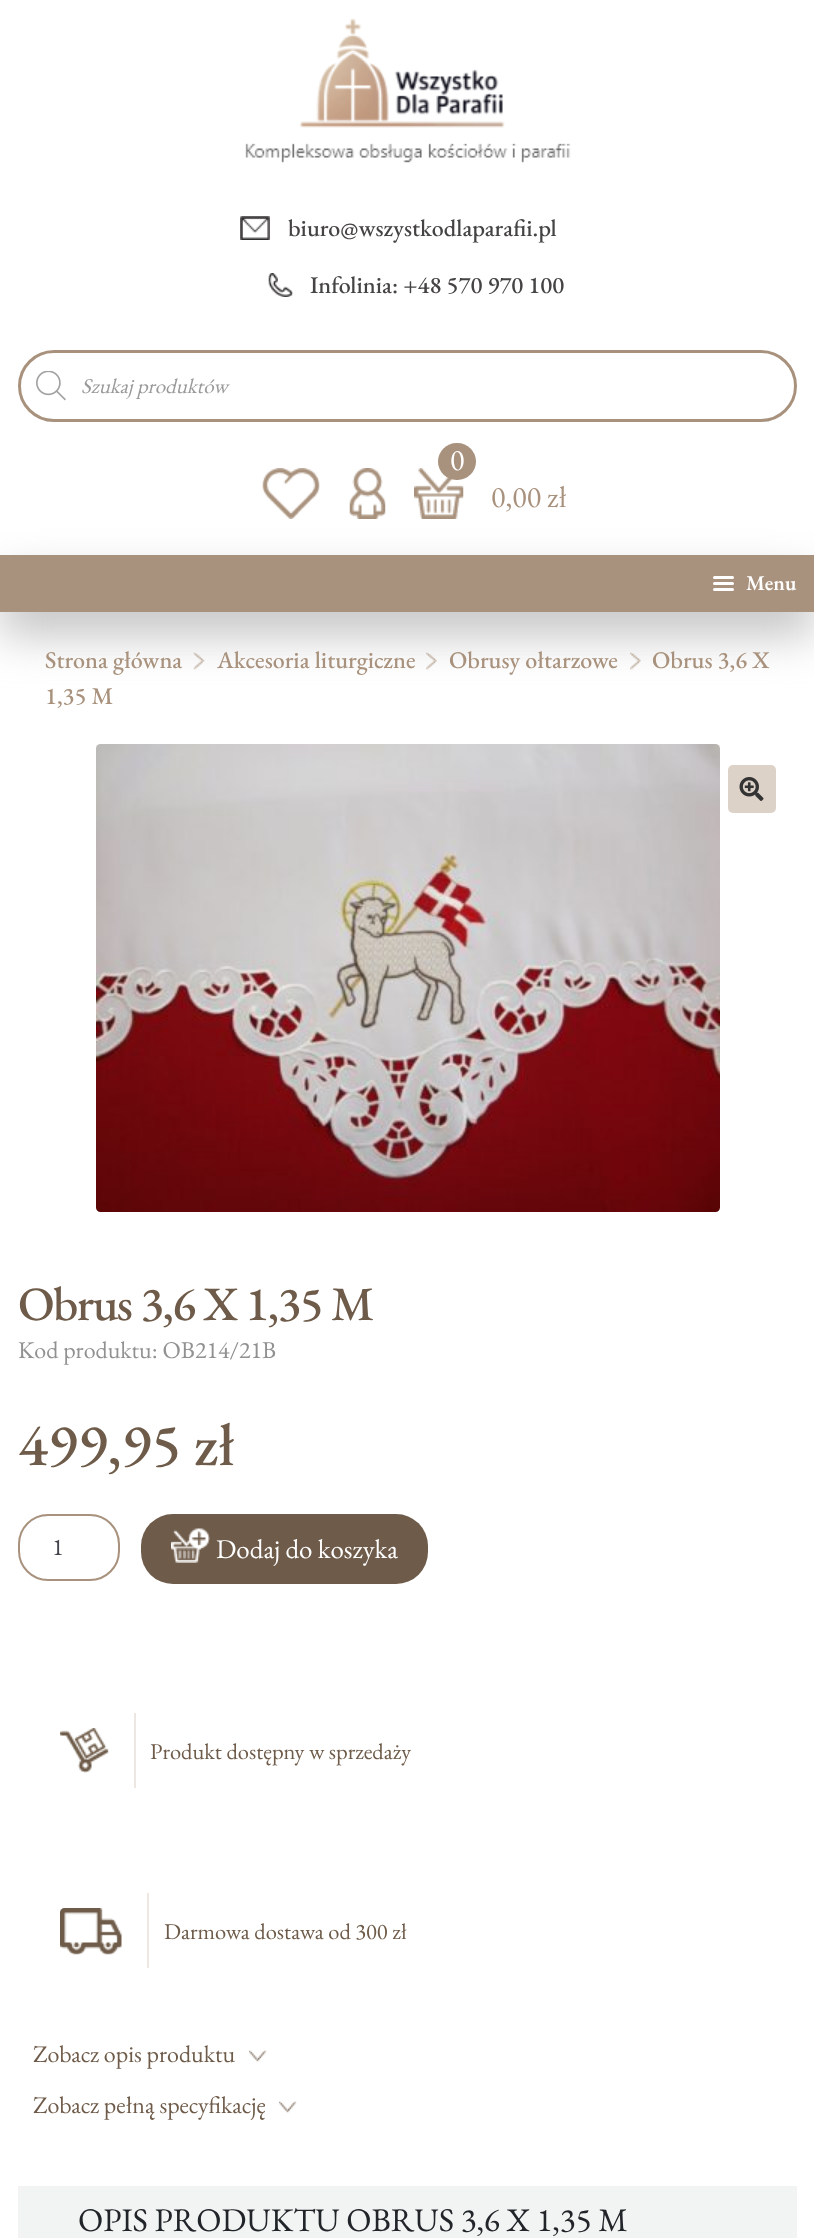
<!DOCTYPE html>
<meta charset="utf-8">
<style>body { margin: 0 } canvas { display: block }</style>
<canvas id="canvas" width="814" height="2238"></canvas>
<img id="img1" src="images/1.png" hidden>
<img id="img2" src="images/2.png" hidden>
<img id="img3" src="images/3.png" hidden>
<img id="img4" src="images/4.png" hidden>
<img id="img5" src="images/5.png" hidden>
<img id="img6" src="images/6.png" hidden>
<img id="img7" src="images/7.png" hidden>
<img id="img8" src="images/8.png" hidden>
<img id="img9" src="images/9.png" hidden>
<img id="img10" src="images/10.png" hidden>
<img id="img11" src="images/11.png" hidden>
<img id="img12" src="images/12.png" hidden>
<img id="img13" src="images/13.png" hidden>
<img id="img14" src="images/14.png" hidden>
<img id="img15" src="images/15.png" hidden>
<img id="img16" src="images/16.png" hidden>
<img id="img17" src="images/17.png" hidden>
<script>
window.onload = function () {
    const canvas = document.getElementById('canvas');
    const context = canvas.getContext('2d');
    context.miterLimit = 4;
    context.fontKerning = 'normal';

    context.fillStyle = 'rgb(255, 255, 255)';
    context.fillRect(0, 0, 814, 2238);
    context.drawImage(document.getElementById('img1'), 245, 18, 326, 145);
    context.drawImage(document.getElementById('img2'), 240, 216, 30, 24);
    context.drawImage(document.getElementById('img3'), 268, 273, 25, 24);
    context.beginPath();
    context.roundRect(19.5, 351.5, 776, 69, 34.5);
    context.strokeStyle = 'rgb(169, 146, 125)';
    context.lineWidth = 3;
    context.stroke();
    context.drawImage(document.getElementById('img4'), 36, 371, 30, 30);
    context.fillStyle = 'rgb(195, 195, 195)';
    context.filter = 'blur(22.5px)';
    context.beginPath();
    context.rect(0, 578, 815, 57);
    context.fill();
    context.filter = 'none';
    context.drawImage(document.getElementById('img5'), 262, 468, 58, 51);
    context.drawImage(document.getElementById('img6'), 349, 468, 37, 51);
    context.drawImage(document.getElementById('img7'), 414, 468, 50, 51);
    context.fillStyle = 'rgb(169, 146, 125)';
    context.beginPath();
    context.roundRect(438, 443, 38, 37, 18.5);
    context.fill();
    context.fillRect(0, 555, 814, 57);
    context.fillStyle = 'rgb(255, 255, 255)';
    context.beginPath();
    context.roundRect(713, 576, 21, 3, 1.5);
    context.fill();
    context.beginPath();
    context.roundRect(713, 582, 21, 3, 1.5);
    context.fill();
    context.beginPath();
    context.roundRect(713, 588, 21, 3, 1.5);
    context.fill();
    context.drawImage(document.getElementById('img8'), 193, 652, 12, 18);
    context.drawImage(document.getElementById('img9'), 426, 652, 11, 18);
    context.drawImage(document.getElementById('img10'), 630, 652, 11, 18);
    context.drawImage(document.getElementById('img11'), 96, 744, 624, 468);
    context.fillStyle = 'rgb(221, 210, 200)';
    context.beginPath();
    context.roundRect(728, 765, 48, 48, 5);
    context.fill();
    context.drawImage(document.getElementById('img12'), 739, 777, 25, 24);
    context.fillStyle = 'rgb(223, 223, 223)';
    context.beginPath();
    context.moveTo(48, 1516);
    context.lineTo(90, 1516);
    context.bezierCurveTo(106, 1516, 118, 1529, 118, 1545);
    context.lineTo(118, 1552);
    context.bezierCurveTo(118, 1558, 116, 1563, 113, 1568);
    context.bezierCurveTo(117, 1563, 119, 1557, 119, 1551);
    context.lineTo(119, 1544);
    context.bezierCurveTo(119, 1528, 106, 1515, 90, 1515);
    context.lineTo(49, 1515);
    context.bezierCurveTo(33, 1515, 20, 1528, 20, 1544);
    context.lineTo(20, 1545);
    context.bezierCurveTo(20, 1529, 32, 1516, 48, 1516);
    context.closePath();
    context.fill();
    context.beginPath();
    context.roundRect(19, 1515, 100, 65, 29);
    context.lineWidth = 2;
    context.stroke();
    context.fillStyle = 'rgb(110, 91, 73)';
    context.beginPath();
    context.roundRect(141, 1514, 287, 70, 32);
    context.fill();
    context.drawImage(document.getElementById('img13'), 171, 1528, 39, 35);
    context.drawImage(document.getElementById('img14'), 60, 1728, 49, 45);
    context.fillStyle = 'rgb(236, 231, 227)';
    context.fillRect(134, 1713, 2, 75);
    context.drawImage(document.getElementById('img15'), 60, 1908, 62, 47);
    context.fillRect(147, 1893, 2, 75);
    context.drawImage(document.getElementById('img16'), 249, 2050, 18, 12);
    context.drawImage(document.getElementById('img17'), 279, 2101, 18, 12);
    context.fillStyle = 'rgb(242, 244, 243)';
    context.fillRect(18, 2186, 779, 52);
    context.font = '500 24px EB Garamond';
    context.fillStyle = 'rgb(69, 67, 68)';
    context.fillText('biuro@wszystkodlaparafii.pl', 288, 236);
    context.fillText('Infolinia: +48 570 970 100', 310, 293);
    context.font = 'italic 21px EB Garamond';
    context.fillStyle = 'rgb(153, 153, 153)';
    context.fillText('Szukaj produktów', 81, 393);
    context.font = '30px EB Garamond';
    context.fillStyle = 'rgb(255, 255, 255)';
    context.fillText('0', 450, 470);
    context.fillStyle = 'rgb(169, 146, 125)';
    context.fillText('0,00 zł', 491, 507);
    context.font = '600 21px EB Garamond';
    context.fillStyle = 'rgb(255, 255, 255)';
    context.fillText('Menu', 746, 590);
    context.font = '500 24px EB Garamond';
    context.fillStyle = 'rgb(169, 146, 125)';
    context.fillText('Strona główna', 45, 668);
    context.fillText('Akcesoria liturgiczne', 217, 668);
    context.fillText('Obrusy ołtarzowe', 449, 668);
    context.fillText('Obrus 3,6 X', 652, 668);
    context.fillText('1,35 M', 45, 704);
    context.letterSpacing = '-1.5px';
    context.font = '500 48px EB Garamond';
    context.fillStyle = 'rgb(110, 91, 73)';
    context.fillText('Obrus 3,6 X 1,35 M', 18, 1320);
    context.letterSpacing = '0px';
    context.font = '24px EB Garamond';
    context.fillStyle = 'rgb(145, 145, 145)';
    context.fillText('Kod produktu: OB214/21B', 18, 1358);
    context.font = '500 60px EB Garamond';
    context.fillStyle = 'rgb(110, 91, 73)';
    context.fillText('499,95 zł', 18, 1465);
    context.font = '24px EB Garamond';
    context.fillStyle = 'rgb(67, 69, 75)';
    context.fillText('1', 52, 1555);
    context.font = '27px EB Garamond';
    context.fillStyle = 'rgb(255, 255, 255)';
    context.fillText('Dodaj do koszyka', 216, 1558);
    context.font = '22.5px EB Garamond';
    context.fillStyle = 'rgb(110, 91, 73)';
    context.fillText('Produkt dostępny w sprzedaży', 150, 1759);
    context.fillText('Darmowa dostawa od 300 zł', 164, 1939);
    context.font = '24px EB Garamond';
    context.fillText('Zobacz opis produktu', 33, 2062);
    context.fillText('Zobacz pełną specyfikację', 33, 2113);
    context.font = '33px EB Garamond';
    context.fillStyle = 'rgb(33, 37, 41)';
    context.fillText('OPIS PRODUKTU OBRUS 3,6 X 1,35 M', 78, 2231);
};
</script>
